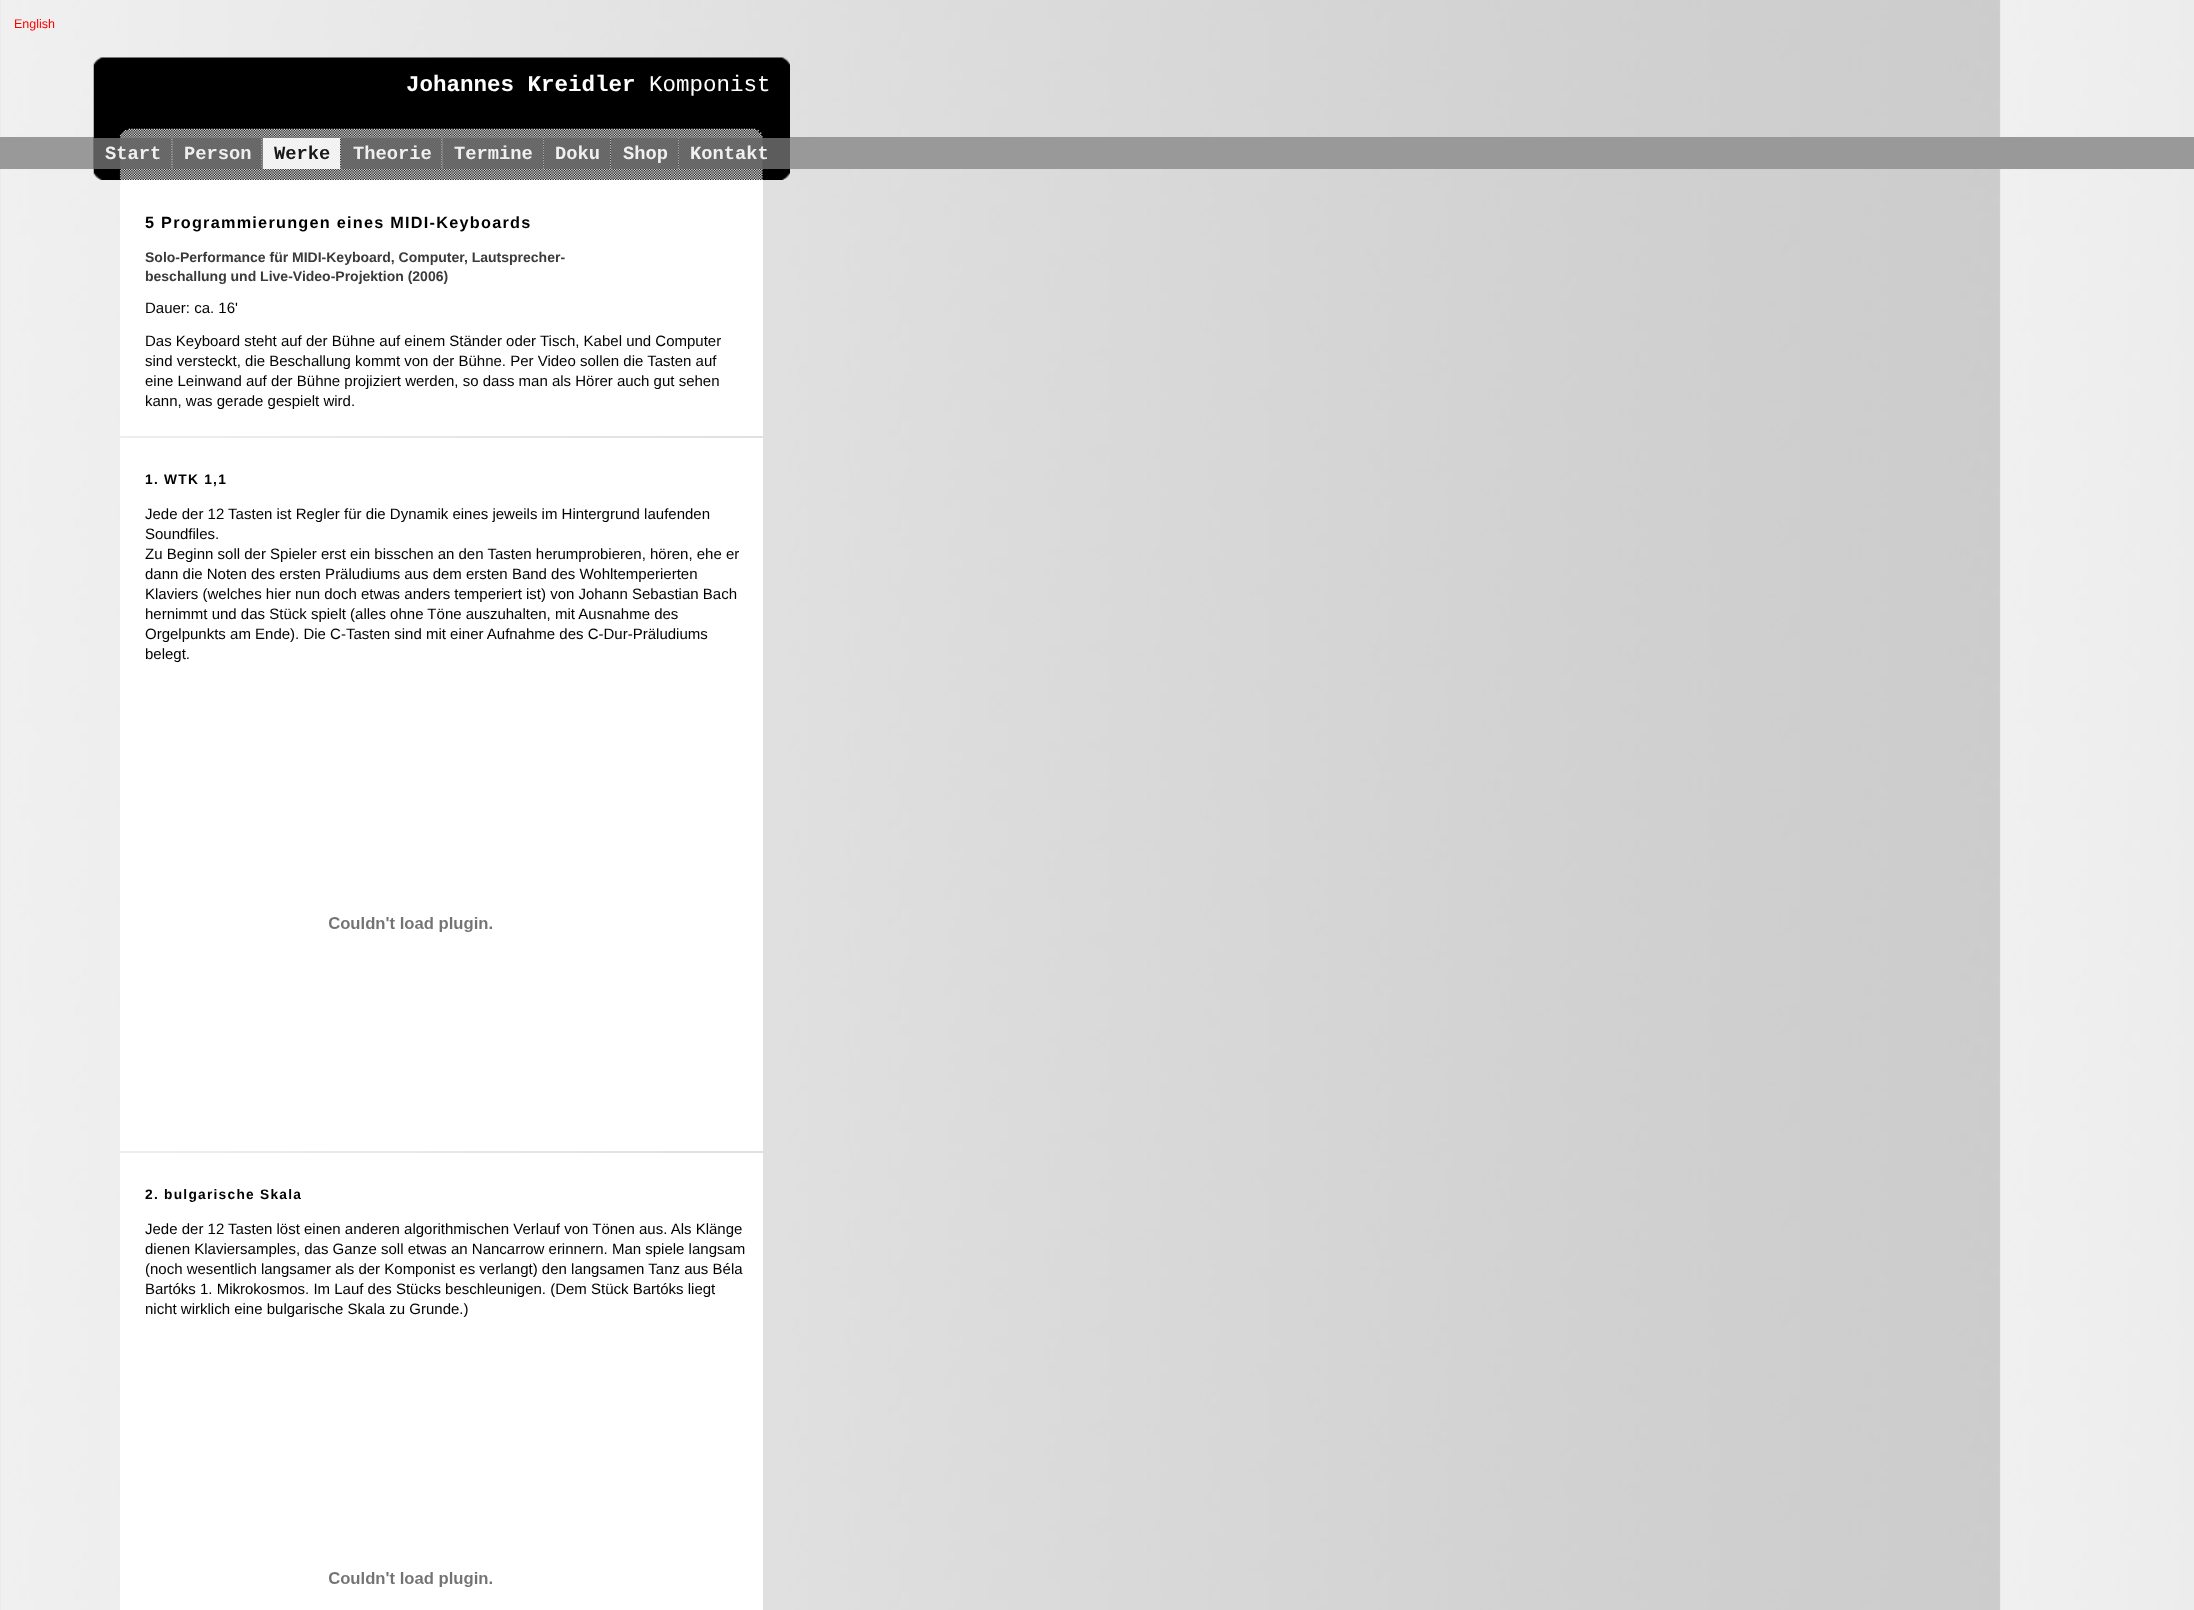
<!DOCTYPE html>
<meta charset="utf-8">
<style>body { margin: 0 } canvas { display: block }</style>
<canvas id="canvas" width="2194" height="1610"></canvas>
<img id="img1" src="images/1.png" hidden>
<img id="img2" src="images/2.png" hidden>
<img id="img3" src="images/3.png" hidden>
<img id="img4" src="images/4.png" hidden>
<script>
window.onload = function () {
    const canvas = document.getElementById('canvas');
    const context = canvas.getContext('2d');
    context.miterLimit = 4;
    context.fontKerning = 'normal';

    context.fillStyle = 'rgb(255, 255, 255)';
    context.fillRect(0, 0, 2194, 1610);
    context.drawImage(document.getElementById('img1'), 0, 0, 2194, 1610);
    context.fillStyle = 'rgb(153, 153, 153)';
    context.fillRect(0, 137, 2194, 32);
    context.drawImage(document.getElementById('img2'), 93, 57, 697, 123);
    context.drawImage(document.getElementById('img3'), 119, 128, 644, 52);
    context.fillStyle = 'rgba(102, 102, 102, 0.9)';
    context.fillRect(94, 138, 77, 31);
    context.fillRect(173, 138, 88, 31);
    context.fillStyle = 'rgba(255, 255, 255, 0.9)';
    context.fillRect(263, 138, 77, 31);
    context.fillStyle = 'rgba(102, 102, 102, 0.9)';
    context.fillRect(341, 138, 100, 31);
    context.fillRect(443, 138, 100, 31);
    context.fillRect(544, 138, 66, 31);
    context.fillRect(611, 138, 67, 31);
    context.fillRect(679, 138, 111, 31);
    context.fillStyle = 'rgb(255, 255, 255)';
    context.fillRect(120, 180, 643, 256);
    context.fillRect(120, 438, 643, 713);
    context.drawImage(document.getElementById('img4'), 329, 917, 163, 15);
    context.fillRect(120, 1153, 643, 457);
    context.drawImage(document.getElementById('img4'), 329, 1572, 163, 15);
    context.font = '12.5px Liberation Sans';
    context.fillStyle = 'rgb(255, 0, 0)';
    context.fillText('English', 14, 28);
    context.font = 'bold 22.5px Liberation Mono';
    context.fillStyle = 'rgb(255, 255, 255)';
    context.fillText('Johannes Kreidler', 406, 91);
    context.font = '22.5px Liberation Mono';
    context.fillText('Komponist', 649, 91);
    context.font = 'bold 18.75px Liberation Mono';
    context.fillStyle = 'rgb(240, 240, 240)';
    context.fillText('Start', 105, 159);
    context.fillText('Person', 184, 159);
    context.fillStyle = 'rgb(24, 24, 24)';
    context.fillText('Werke', 274, 159);
    context.fillStyle = 'rgb(240, 240, 240)';
    context.fillText('Theorie', 353, 159);
    context.fillText('Termine', 454, 159);
    context.fillText('Doku', 555, 159);
    context.fillText('Shop', 623, 159);
    context.fillText('Kontakt', 690, 159);
    context.letterSpacing = '1.25px';
    context.font = 'bold 16.25px Liberation Sans';
    context.fillStyle = 'rgb(0, 0, 0)';
    context.fillText('5 Programmierungen eines MIDI-Keyboards', 145, 228);
    context.letterSpacing = '0px';
    context.font = 'bold 14px Liberation Sans';
    context.fillStyle = 'rgb(59, 58, 58)';
    context.fillText('Solo-Performance für MIDI-Keyboard, Computer, Lautsprecher-', 145, 262);
    context.fillText('beschallung und Live-Video-Projektion (2006)', 145, 281);
    context.font = '15px Liberation Sans';
    context.fillStyle = 'rgb(0, 0, 0)';
    context.fillText('Dauer: ca. 16\'', 145, 313);
    context.fillText('Das Keyboard steht auf der Bühne auf einem Ständer oder Tisch, Kabel und Computer', 145, 346);
    context.fillText('sind versteckt, die Beschallung kommt von der Bühne. Per Video sollen die Tasten auf', 145, 366);
    context.fillText('eine Leinwand auf der Bühne projiziert werden, so dass man als Hörer auch gut sehen', 145, 386);
    context.fillText('kann, was gerade gespielt wird.', 145, 406);
    context.letterSpacing = '1.25px';
    context.font = 'bold 13.75px Liberation Sans';
    context.fillText('1. WTK 1,1', 145, 484);
    context.letterSpacing = '0px';
    context.font = '15px Liberation Sans';
    context.fillText('Jede der 12 Tasten ist Regler für die Dynamik eines jeweils im Hintergrund laufenden', 145, 519);
    context.fillText('Soundfiles.', 145, 539);
    context.fillText('Zu Beginn soll der Spieler erst ein bisschen an den Tasten herumprobieren, hören, ehe er', 145, 559);
    context.fillText('dann die Noten des ersten Präludiums aus dem ersten Band des Wohltemperierten', 145, 579);
    context.fillText('Klaviers (welches hier nun doch etwas anders temperiert ist) von Johann Sebastian Bach', 145, 599);
    context.fillText('hernimmt und das Stück spielt (alles ohne Töne auszuhalten, mit Ausnahme des', 145, 619);
    context.fillText('Orgelpunkts am Ende). Die C-Tasten sind mit einer Aufnahme des C-Dur-Präludiums', 145, 639);
    context.fillText('belegt.', 145, 659);
    context.letterSpacing = '1.25px';
    context.font = 'bold 13.75px Liberation Sans';
    context.fillText('2. bulgarische Skala', 145, 1199);
    context.letterSpacing = '0px';
    context.font = '15px Liberation Sans';
    context.fillText('Jede der 12 Tasten löst einen anderen algorithmischen Verlauf von Tönen aus. Als Klänge', 145, 1234);
    context.fillText('dienen Klaviersamples, das Ganze soll etwas an Nancarrow erinnern. Man spiele langsam', 145, 1254);
    context.fillText('(noch wesentlich langsamer als der Komponist es verlangt) den langsamen Tanz aus Béla', 145, 1274);
    context.fillText('Bartóks 1. Mikrokosmos. Im Lauf des Stücks beschleunigen. (Dem Stück Bartóks liegt', 145, 1294);
    context.fillText('nicht wirklich eine bulgarische Skala zu Grunde.)', 145, 1314);
};
</script>
